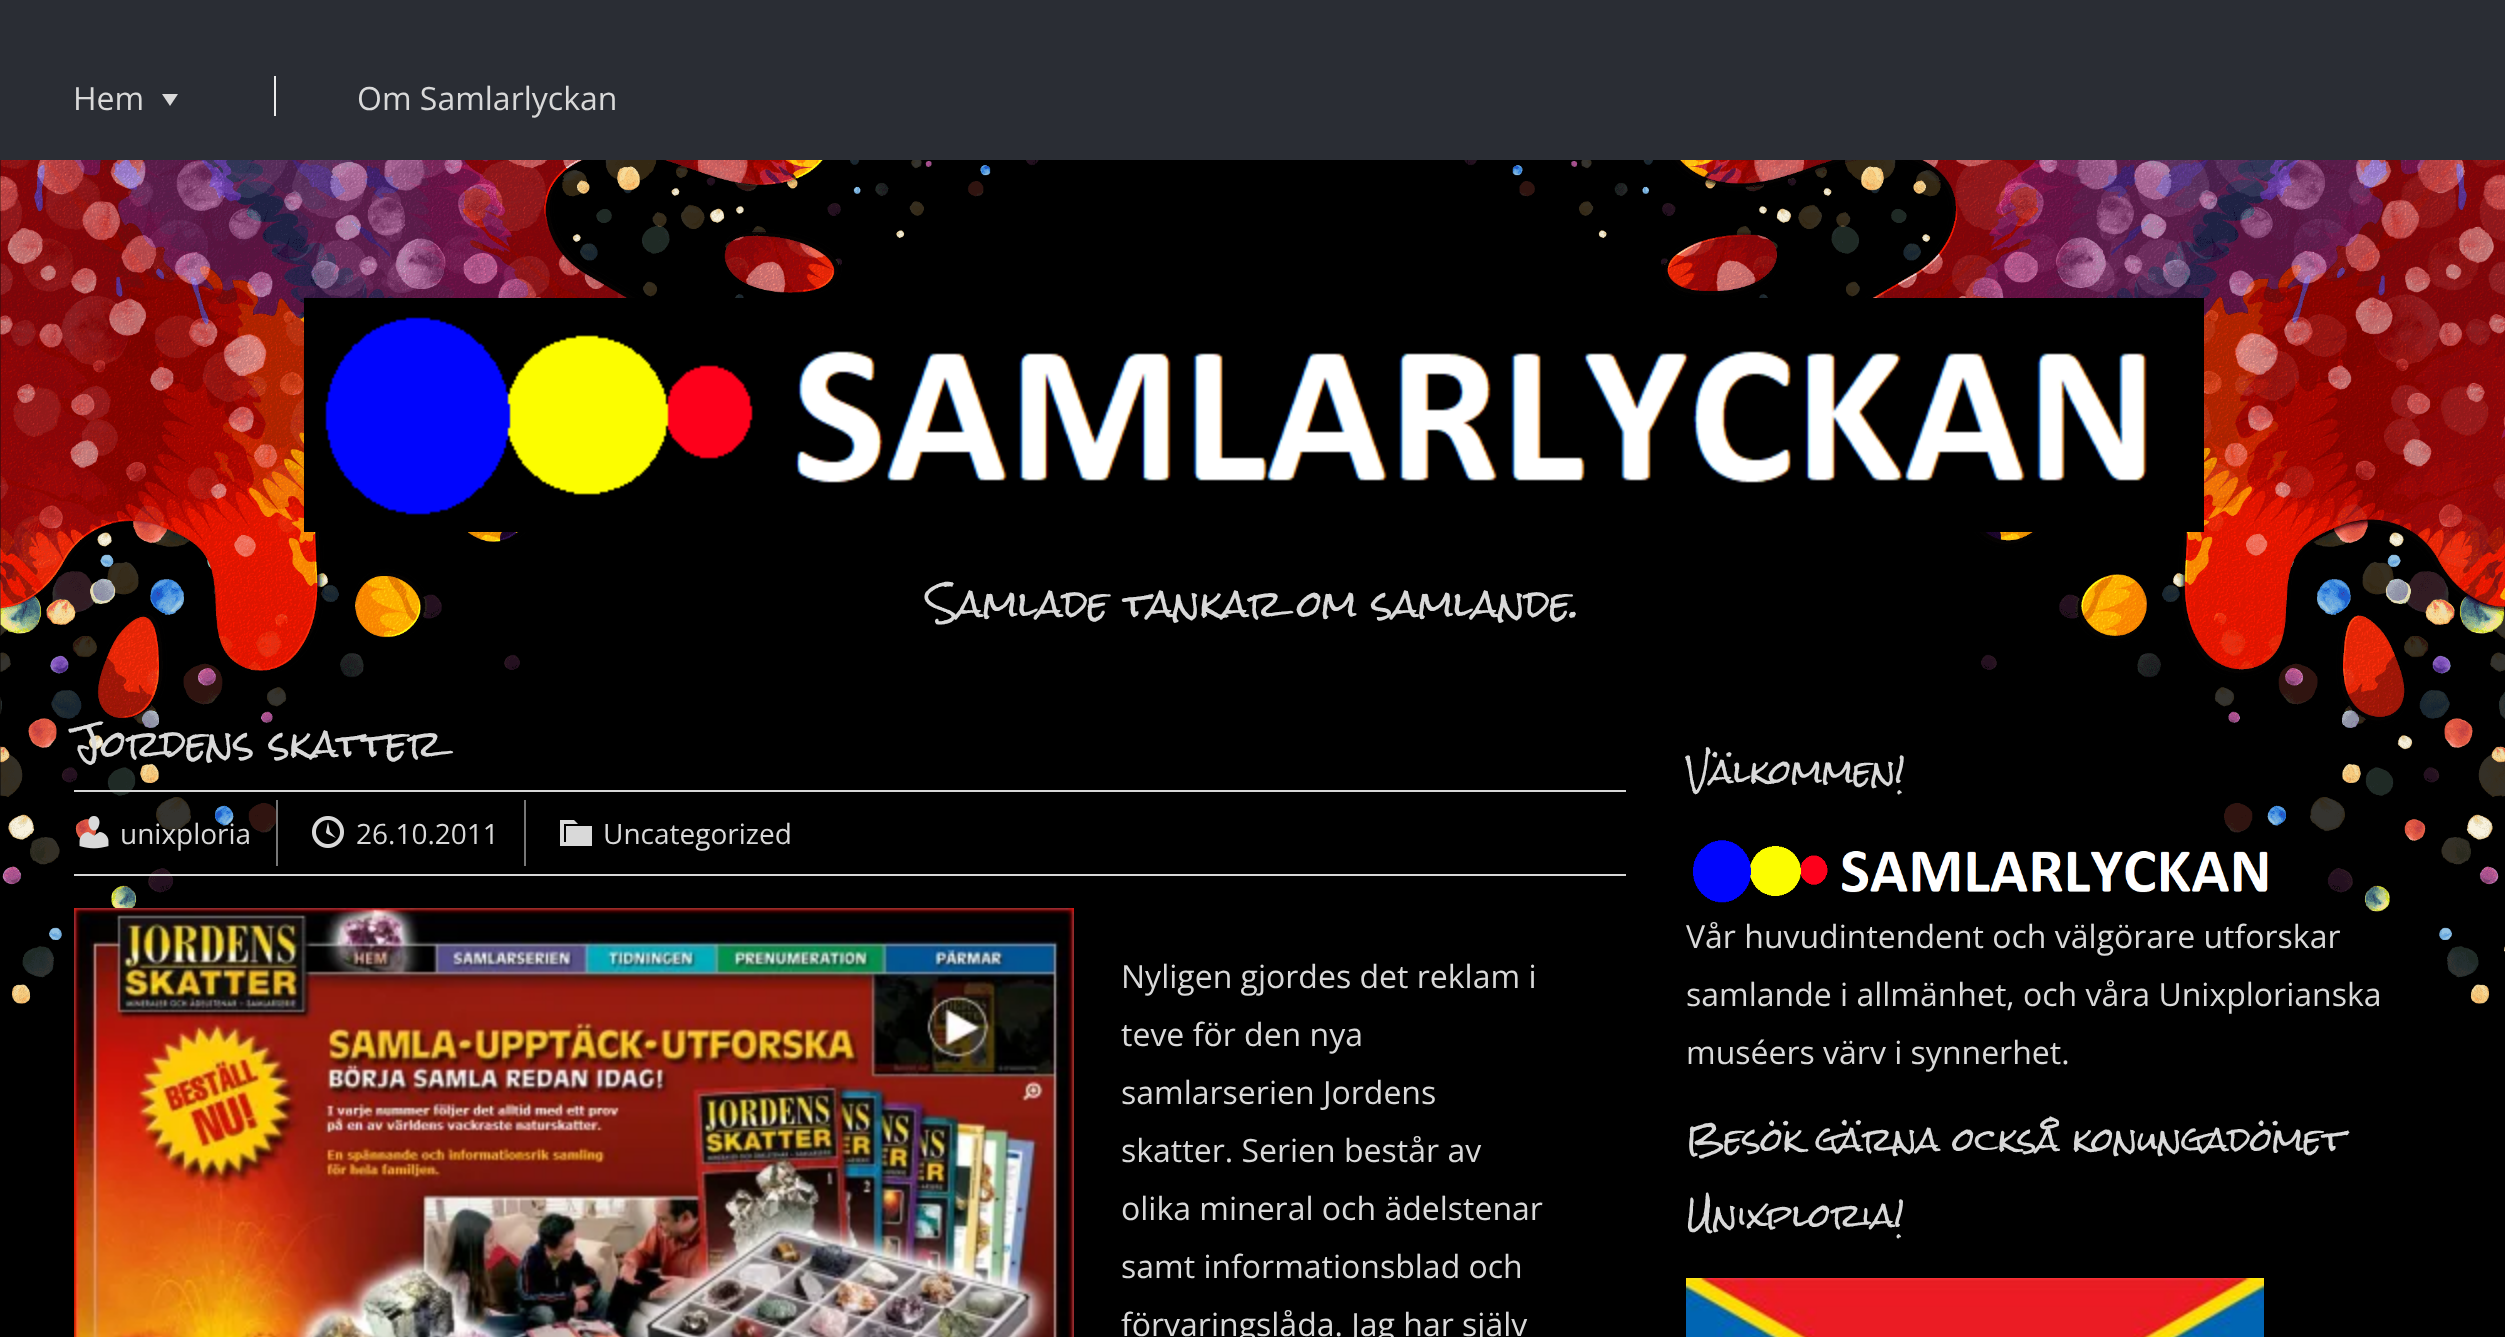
<!DOCTYPE html>
<meta charset="utf-8">
<style>body { margin: 0 } canvas { display: block }</style>
<canvas id="canvas" width="2505" height="1337"></canvas>
<img id="img1" src="images/1.png" hidden>
<img id="img2" src="images/2.png" hidden>
<img id="img3" src="images/3.png" hidden>
<img id="img4" src="images/4.png" hidden>
<img id="img5" src="images/5.png" hidden>
<img id="img6" src="images/6.png" hidden>
<img id="img7" src="images/7.png" hidden>
<script>
window.onload = function () {
    const canvas = document.getElementById('canvas');
    const context = canvas.getContext('2d');
    context.miterLimit = 4;
    context.fontKerning = 'normal';

    context.fillStyle = 'rgb(0, 0, 0)';
    context.fillRect(0, 0, 2505, 1337);
    context.drawImage(document.getElementById('img1'), 0, 160, 2505, 844);
    context.fillStyle = 'rgb(42, 45, 52)';
    context.fillRect(0, 0, 2505, 160);
    context.fillStyle = 'rgb(217, 217, 217)';
    context.beginPath();
    context.moveTo(178, 94);
    context.lineTo(170, 106);
    context.lineTo(162, 94);
    context.closePath();
    context.fill();
    context.fillStyle = 'rgb(235, 235, 235)';
    context.fillRect(274, 76, 2, 40);
    context.drawImage(document.getElementById('img2'), 304, 298, 1900, 234);
    context.fillStyle = 'rgb(215, 215, 215)';
    context.fillRect(74, 790, 1552, 2);
    context.fillRect(74, 874, 1552, 2);
    context.drawImage(document.getElementById('img3'), 79, 816, 30, 33);
    context.fillStyle = 'rgb(119, 119, 119)';
    context.fillRect(276, 800, 2, 66);
    context.drawImage(document.getElementById('img4'), 312, 816, 32, 32);
    context.fillRect(524, 800, 2, 66);
    context.fillStyle = 'rgb(217, 217, 217)';
    context.beginPath();
    context.moveTo(566, 826);
    context.lineTo(592, 826);
    context.lineTo(592, 846);
    context.lineTo(560, 846);
    context.lineTo(560, 820);
    context.lineTo(574, 820);
    context.lineTo(578, 824);
    context.lineTo(564, 824);
    context.lineTo(564, 842);
    context.lineTo(566, 842);
    context.closePath();
    context.fill();
    context.drawImage(document.getElementById('img5'), 74, 908, 1000, 429);
    context.drawImage(document.getElementById('img6'), 1693, 840, 575, 63);
    context.drawImage(document.getElementById('img7'), 1686, 1278, 578, 59);
    context.font = '32px Open Sans';
    context.fillText('Hem', 73, 110);
    context.fillText('Om Samlarlyckan', 357, 110);
    context.font = '36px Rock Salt';
    context.fillText('Samlade tankar om samlande.', 927, 618);
    context.fillText('Jordens skatter', 73, 758);
    context.font = '28px Open Sans';
    context.fillText('unixploria', 120, 844);
    context.fillText('26.10.2011', 356, 844);
    context.fillText('Uncategorized', 603, 844);
    context.font = '32px Open Sans';
    context.fillText('Nyligen gjordes det reklam i', 1121, 988);
    context.fillText('teve för den nya', 1121, 1046);
    context.fillText('samlarserien Jordens', 1121, 1104);
    context.fillText('skatter. Serien består av', 1121, 1162);
    context.fillText('olika mineral och ädelstenar', 1121, 1220);
    context.fillText('samt informationsblad och', 1121, 1278);
    context.fillText('förvaringslåda. Jag har själv', 1121, 1336);
    context.font = '32px Rock Salt';
    context.fillText('Välkommen!', 1686, 784);
    context.font = '32px Open Sans';
    context.fillText('Vår huvudintendent och välgörare utforskar', 1686, 948);
    context.fillText('samlande i allmänhet, och våra Unixplorianska', 1686, 1006);
    context.fillText('muséers värv i synnerhet.', 1686, 1064);
    context.font = '32px Rock Salt';
    context.fillText('Besök gärna också konungadömet', 1686, 1152);
    context.fillText('Unixploria!', 1686, 1228);
};
</script>
